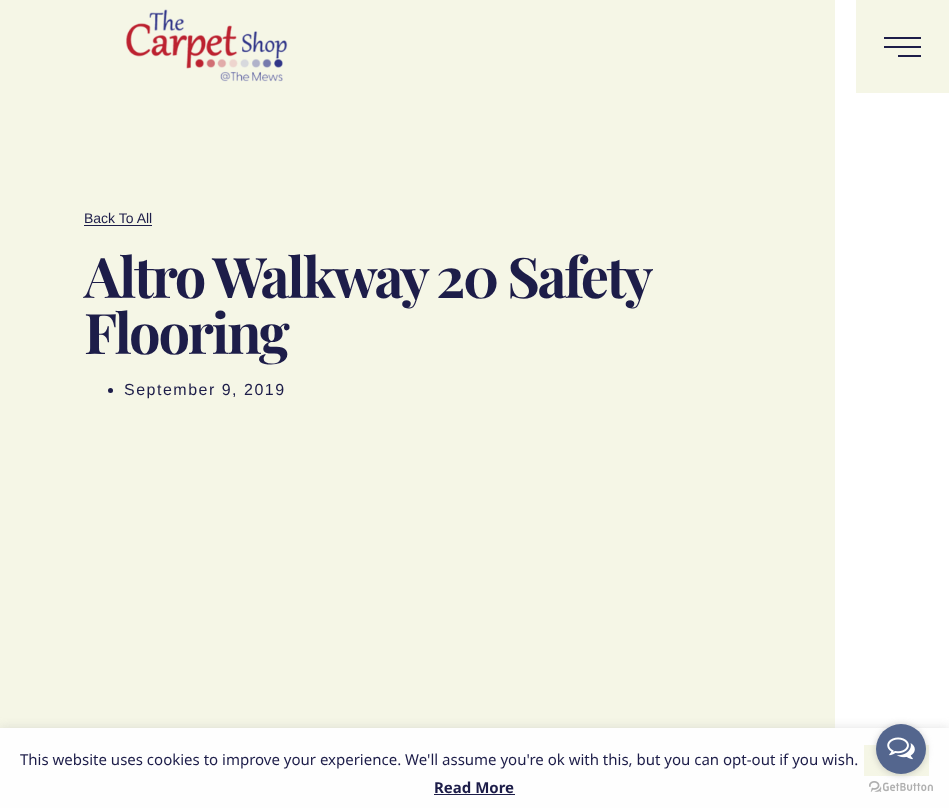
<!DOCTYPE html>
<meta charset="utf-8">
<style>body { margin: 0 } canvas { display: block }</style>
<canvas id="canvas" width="949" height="808"></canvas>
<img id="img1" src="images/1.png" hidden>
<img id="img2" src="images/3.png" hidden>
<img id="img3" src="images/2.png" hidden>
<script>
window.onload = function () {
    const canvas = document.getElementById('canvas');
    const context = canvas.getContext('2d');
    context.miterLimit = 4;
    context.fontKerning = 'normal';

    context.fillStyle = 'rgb(255, 255, 255)';
    context.fillRect(0, 0, 949, 808);
    context.fillStyle = 'rgb(245, 246, 230)';
    context.fillRect(0, 0, 835, 728);
    context.drawImage(document.getElementById('img1'), 126, 9, 162, 73);
    context.fillRect(856, 0, 93, 93);
    context.fillStyle = 'rgb(29, 29, 73)';
    context.fillRect(884, 37, 37, 2);
    context.fillRect(884, 46, 37, 2);
    context.fillRect(898, 55, 23, 2);
    context.fillRect(84, 225, 68, 1);
    context.beginPath();
    context.arc(110.5, 390.5, 2.5, 0, 2 * Math.PI);
    context.fill();
    context.fillStyle = 'rgba(172, 171, 171, 0.3)';
    context.filter = 'blur(5px)';
    context.beginPath();
    context.rect(0, 727, 949, 80);
    context.fill();
    context.filter = 'none';
    context.fillStyle = 'rgb(254, 254, 254)';
    context.fillRect(0, 728, 949, 80);
    context.fillStyle = 'rgb(245, 246, 230)';
    context.fillRect(864, 745, 65, 31);
    context.fillStyle = 'rgb(29, 29, 73)';
    context.fillRect(434, 794, 81, 1);
    context.drawImage(document.getElementById('img2'), 869, 781, 64, 11);
    context.fillStyle = 'rgba(136, 136, 136, 0.4)';
    context.filter = 'blur(3.5px)';
    context.beginPath();
    context.roundRect(876, 725, 50, 50, 25);
    context.fill();
    context.filter = 'none';
    context.fillStyle = 'rgb(84, 102, 142)';
    context.beginPath();
    context.arc(901, 749, 25, 0, 2 * Math.PI);
    context.fill();
    context.drawImage(document.getElementById('img3'), 887, 737, 28, 23);
    context.font = '14px Liberation Sans';
    context.fillStyle = 'rgb(29, 29, 73)';
    context.fillText('Back To All', 84, 223);
    context.letterSpacing = '-2.25px';
    context.wordSpacing = '-0.5px';
    context.font = 'bold 56px Playfair Display';
    context.fillText('Altro Walkway 20 Safety', 84, 298);
    context.wordSpacing = '0px';
    context.fillText('Flooring', 84, 354);
    context.letterSpacing = '1.5px';
    context.font = '16px Liberation Sans';
    context.fillText('September 9, 2019', 124, 395);
    context.letterSpacing = '0px';
    context.font = '15px Noto Sans';
    context.fillText('This website uses cookies to improve your experience. We\'ll assume you\'re ok with this, but you can opt-out if you wish.', 20, 765);
    context.font = 'bold 15px Noto Sans';
    context.fillText('Read More', 434, 793);
};
</script>
